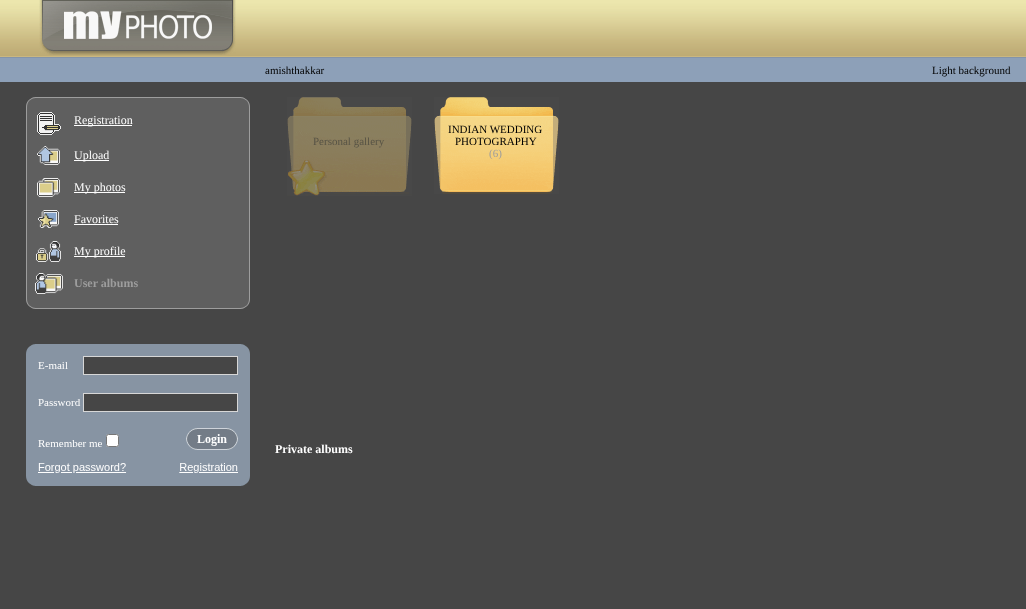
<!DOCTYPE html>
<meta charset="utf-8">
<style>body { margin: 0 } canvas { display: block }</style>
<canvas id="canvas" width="1026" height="609"></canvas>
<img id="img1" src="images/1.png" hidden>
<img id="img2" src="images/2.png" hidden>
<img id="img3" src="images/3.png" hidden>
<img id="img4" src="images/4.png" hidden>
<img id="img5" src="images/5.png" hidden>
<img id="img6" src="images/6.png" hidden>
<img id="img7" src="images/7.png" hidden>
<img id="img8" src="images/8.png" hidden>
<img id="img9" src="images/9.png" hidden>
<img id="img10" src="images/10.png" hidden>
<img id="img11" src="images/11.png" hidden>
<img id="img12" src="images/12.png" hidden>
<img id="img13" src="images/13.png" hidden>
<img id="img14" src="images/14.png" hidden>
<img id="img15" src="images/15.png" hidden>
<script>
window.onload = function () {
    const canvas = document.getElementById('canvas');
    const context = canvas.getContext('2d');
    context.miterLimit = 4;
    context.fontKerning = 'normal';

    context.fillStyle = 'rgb(70, 70, 70)';
    context.fillRect(0, 0, 1026, 609);
    context.drawImage(document.getElementById('img1'), 0, 0, 1026, 82);
    context.drawImage(document.getElementById('img2'), 39, 0, 197, 55);
    context.drawImage(document.getElementById('img3'), 26, 97, 10, 10);
    context.fillStyle = 'rgb(95, 95, 95)';
    context.fillRect(36, 98, 204, 9);
    context.fillStyle = 'rgb(157, 157, 157)';
    context.fillRect(36, 97, 204, 1);
    context.drawImage(document.getElementById('img4'), 240, 97, 10, 10);
    context.fillStyle = 'rgb(95, 95, 95)';
    context.fillRect(27, 107, 222, 192);
    context.fillStyle = 'rgb(157, 157, 157)';
    context.fillRect(249, 107, 1, 192);
    context.fillRect(26, 107, 1, 192);
    context.drawImage(document.getElementById('img5'), 37, 112, 24, 23);
    context.fillStyle = 'rgb(254, 254, 254)';
    context.fillRect(74, 125, 58, 1);
    context.drawImage(document.getElementById('img6'), 37, 146, 23, 19);
    context.fillRect(74, 160, 35, 1);
    context.drawImage(document.getElementById('img7'), 37, 178, 23, 19);
    context.fillRect(74, 192, 51, 1);
    context.drawImage(document.getElementById('img8'), 38, 210, 21, 18);
    context.fillRect(74, 224, 44, 1);
    context.drawImage(document.getElementById('img9'), 36, 241, 25, 21);
    context.fillRect(74, 256, 51, 1);
    context.drawImage(document.getElementById('img10'), 35, 273, 28, 21);
    context.drawImage(document.getElementById('img11'), 26, 299, 10, 10);
    context.fillStyle = 'rgb(95, 95, 95)';
    context.fillRect(36, 299, 204, 9);
    context.fillStyle = 'rgb(157, 157, 157)';
    context.fillRect(36, 308, 204, 1);
    context.drawImage(document.getElementById('img12'), 240, 299, 10, 10);
    context.drawImage(document.getElementById('img13'), 26, 344, 224, 142);
    context.drawImage(document.getElementById('img14'), 287, 97, 125, 99);
    context.drawImage(document.getElementById('img15'), 434, 97, 125, 97);
    context.font = '11px Liberation Serif';
    context.fillStyle = 'rgb(0, 0, 0)';
    context.fillText('amishthakkar', 265, 74);
    context.fillText('Light background', 932, 74);
    context.font = '12px Liberation Serif';
    context.fillStyle = 'rgb(254, 254, 254)';
    context.fillText('Registration', 74, 124);
    context.fillText('Upload', 74, 159);
    context.fillText('My photos', 74, 191);
    context.fillText('Favorites', 74, 223);
    context.fillText('My profile', 74, 255);
    context.font = 'bold 12px Liberation Serif';
    context.fillStyle = 'rgb(157, 157, 157)';
    context.fillText('User albums', 74, 287);
    context.font = '11px Liberation Serif';
    context.fillStyle = 'rgb(87, 83, 69)';
    context.fillText('Personal gallery', 313, 145);
    context.fillStyle = 'rgb(0, 0, 0)';
    context.fillText('INDIAN WEDDING', 448, 133);
    context.fillText('PHOTOGRAPHY', 455, 145);
    context.fillStyle = 'rgb(157, 157, 157)';
    context.fillText('(6)', 489, 157);
    context.font = 'bold 12px Liberation Serif';
    context.fillStyle = 'rgb(254, 254, 254)';
    context.fillText('Private albums', 275, 453);
};
</script>
